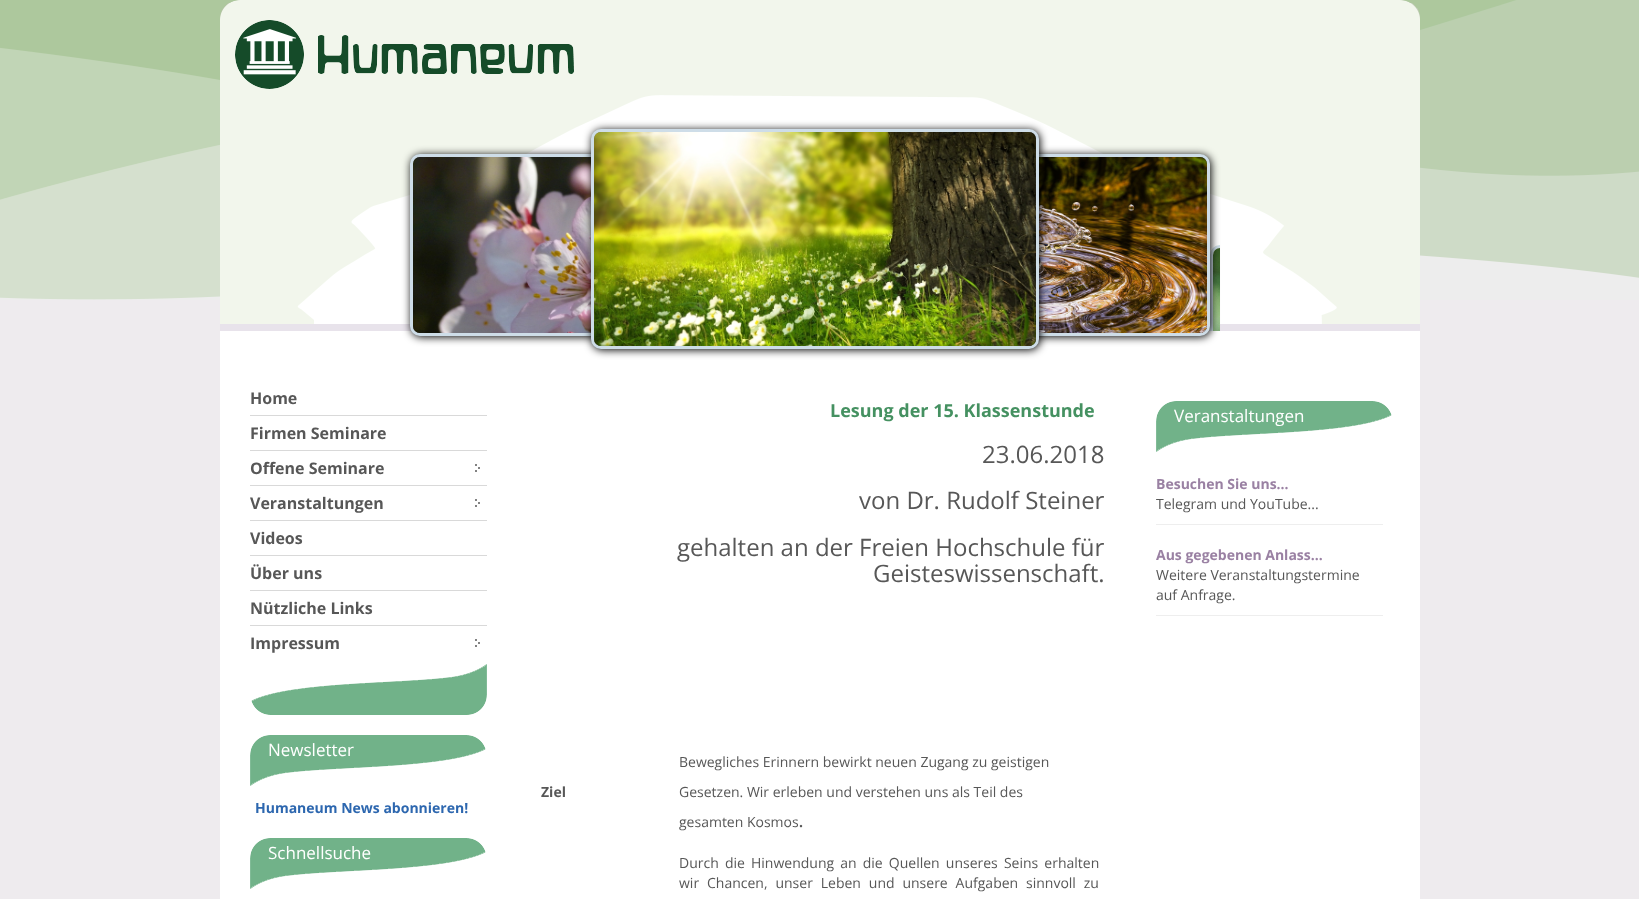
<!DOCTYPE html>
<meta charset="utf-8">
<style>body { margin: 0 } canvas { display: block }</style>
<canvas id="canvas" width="1639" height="899"></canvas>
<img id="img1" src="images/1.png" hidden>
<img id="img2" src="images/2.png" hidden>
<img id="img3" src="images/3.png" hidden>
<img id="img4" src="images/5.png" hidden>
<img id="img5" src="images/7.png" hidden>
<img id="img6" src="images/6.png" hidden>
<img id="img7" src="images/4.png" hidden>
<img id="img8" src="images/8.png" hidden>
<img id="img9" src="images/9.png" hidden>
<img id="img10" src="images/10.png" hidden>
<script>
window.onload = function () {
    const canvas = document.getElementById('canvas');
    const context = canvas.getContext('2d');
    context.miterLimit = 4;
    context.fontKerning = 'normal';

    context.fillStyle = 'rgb(238, 235, 238)';
    context.fillRect(0, 0, 1639, 899);
    context.drawImage(document.getElementById('img1'), 0, 0, 1639, 300);
    context.drawImage(document.getElementById('img2'), 220, 0, 1200, 331);
    context.drawImage(document.getElementById('img3'), 235, 20, 339, 69);
    context.save();
    context.beginPath();
    context.rect(400, 119, 820, 240);
    context.clip();
    context.beginPath();
    context.roundRect(1211.5, 246.5, 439, 603, 8.5);
    context.strokeStyle = 'rgb(206, 221, 232)';
    context.lineWidth = 3;
    context.stroke();
    context.restore();
    context.fillStyle = 'rgb(255, 255, 255)';
    context.fillRect(220, 331, 1200, 568);
    context.fillStyle = 'rgb(0, 0, 0)';
    context.filter = 'blur(4px)';
    context.beginPath();
    context.roundRect(411, 155, 371, 182, 10);
    context.fill();
    context.filter = 'none';
    context.beginPath();
    context.roundRect(411.5, 155.5, 368, 179, 8.5);
    context.strokeStyle = 'rgb(206, 221, 232)';
    context.lineWidth = 3;
    context.stroke();
    context.drawImage(document.getElementById('img4'), 413, 157, 178, 176);
    context.drawImage(document.getElementById('img5'), 1213, 248, 7, 83);
    context.filter = 'blur(4px)';
    context.beginPath();
    context.roundRect(840, 155, 371, 182, 10);
    context.fill();
    context.filter = 'none';
    context.beginPath();
    context.roundRect(840.5, 155.5, 368, 179, 8.5);
    context.stroke();
    context.drawImage(document.getElementById('img6'), 1039, 157, 168, 176);
    context.filter = 'blur(4px)';
    context.beginPath();
    context.roundRect(592, 130, 448, 220, 10);
    context.fill();
    context.filter = 'none';
    context.beginPath();
    context.roundRect(592.5, 130.5, 445, 217, 8.5);
    context.stroke();
    context.drawImage(document.getElementById('img7'), 594, 132, 442, 214);
    context.drawImage(document.getElementById('img8'), 251, 664, 236, 51);
    context.fillStyle = 'rgb(217, 217, 217)';
    context.fillRect(250, 415, 237, 1);
    context.fillRect(250, 450, 237, 1);
    context.drawImage(document.getElementById('img9'), 475, 464, 5, 8);
    context.fillRect(250, 485, 237, 1);
    context.drawImage(document.getElementById('img9'), 475, 499, 5, 8);
    context.fillRect(250, 520, 237, 1);
    context.fillRect(250, 555, 237, 1);
    context.fillRect(250, 590, 237, 1);
    context.fillRect(250, 625, 237, 1);
    context.drawImage(document.getElementById('img9'), 475, 639, 5, 8);
    context.drawImage(document.getElementById('img10'), 250, 735, 236, 51);
    context.drawImage(document.getElementById('img10'), 250, 838, 236, 51);
    context.drawImage(document.getElementById('img10'), 1156, 401, 236, 51);
    context.fillStyle = 'rgb(238, 238, 238)';
    context.fillRect(1156, 524, 227, 1);
    context.fillRect(1156, 615, 227, 1);
    context.font = 'bold 16px Open Sans';
    context.fillStyle = 'rgb(87, 87, 87)';
    context.fillText('Home', 250, 404);
    context.fillText('Firmen Seminare', 250, 439);
    context.fillText('Offene Seminare', 250, 474);
    context.fillText('Veranstaltungen', 250, 509);
    context.fillText('Videos', 250, 544);
    context.fillText('Über uns', 250, 579);
    context.fillText('Nützliche Links', 250, 614);
    context.fillText('Impressum', 250, 649);
    context.font = '17px Open Sans';
    context.fillStyle = 'rgb(255, 255, 255)';
    context.fillText('Newsletter', 268, 756);
    context.font = 'bold 14px Open Sans';
    context.fillStyle = 'rgb(45, 103, 175)';
    context.fillText('Humaneum News abonnieren!', 255, 813);
    context.font = '17px Open Sans';
    context.fillStyle = 'rgb(255, 255, 255)';
    context.fillText('Schnellsuche', 268, 859);
    context.font = 'bold 18px Open Sans';
    context.fillStyle = 'rgb(69, 145, 97)';
    context.fillText('Lesung der 15. Klassenstunde', 830, 417);
    context.font = '24px Open Sans';
    context.fillStyle = 'rgb(87, 87, 87)';
    context.fillText('23.06.2018', 982, 463);
    context.fillText('von Dr. Rudolf Steiner', 859, 509);
    context.fillText('gehalten an der Freien Hochschule für', 677, 556);
    context.fillText('Geisteswissenschaft.', 873, 582);
    context.font = 'bold 14px Open Sans';
    context.fillText('Ziel', 541, 797);
    context.font = '14px Open Sans';
    context.fillText('Bewegliches Erinnern bewirkt neuen Zugang zu geistigen', 679, 767);
    context.fillText('Gesetzen. Wir erleben und verstehen uns als Teil des', 679, 797);
    context.fillText('gesamten Kosmos', 679, 827);
    context.font = 'bold 14px Open Sans';
    context.fillText('.', 799, 827);
    context.wordSpacing = '2.5px';
    context.font = '14px Open Sans';
    context.fillText('Durch die Hinwendung an die Quellen unseres Seins erhalten', 679, 868);
    context.wordSpacing = '4.25px';
    context.fillText('wir Chancen, unser Leben und unsere Aufgaben sinnvoll zu', 679, 888);
    context.wordSpacing = '0px';
    context.font = '17px Open Sans';
    context.fillStyle = 'rgb(255, 255, 255)';
    context.fillText('Veranstaltungen', 1174, 422);
    context.font = 'bold 14px Open Sans';
    context.fillStyle = 'rgb(154, 129, 163)';
    context.fillText('Besuchen Sie uns…', 1156, 489);
    context.font = '14px Open Sans';
    context.fillStyle = 'rgb(87, 87, 87)';
    context.fillText('Telegram und YouTube...', 1156, 509);
    context.font = 'bold 14px Open Sans';
    context.fillStyle = 'rgb(154, 129, 163)';
    context.fillText('Aus gegebenen Anlass…', 1156, 560);
    context.font = '14px Open Sans';
    context.fillStyle = 'rgb(87, 87, 87)';
    context.fillText('Weitere Veranstaltungstermine', 1156, 580);
    context.fillText('auf Anfrage.', 1156, 600);
};
</script>
